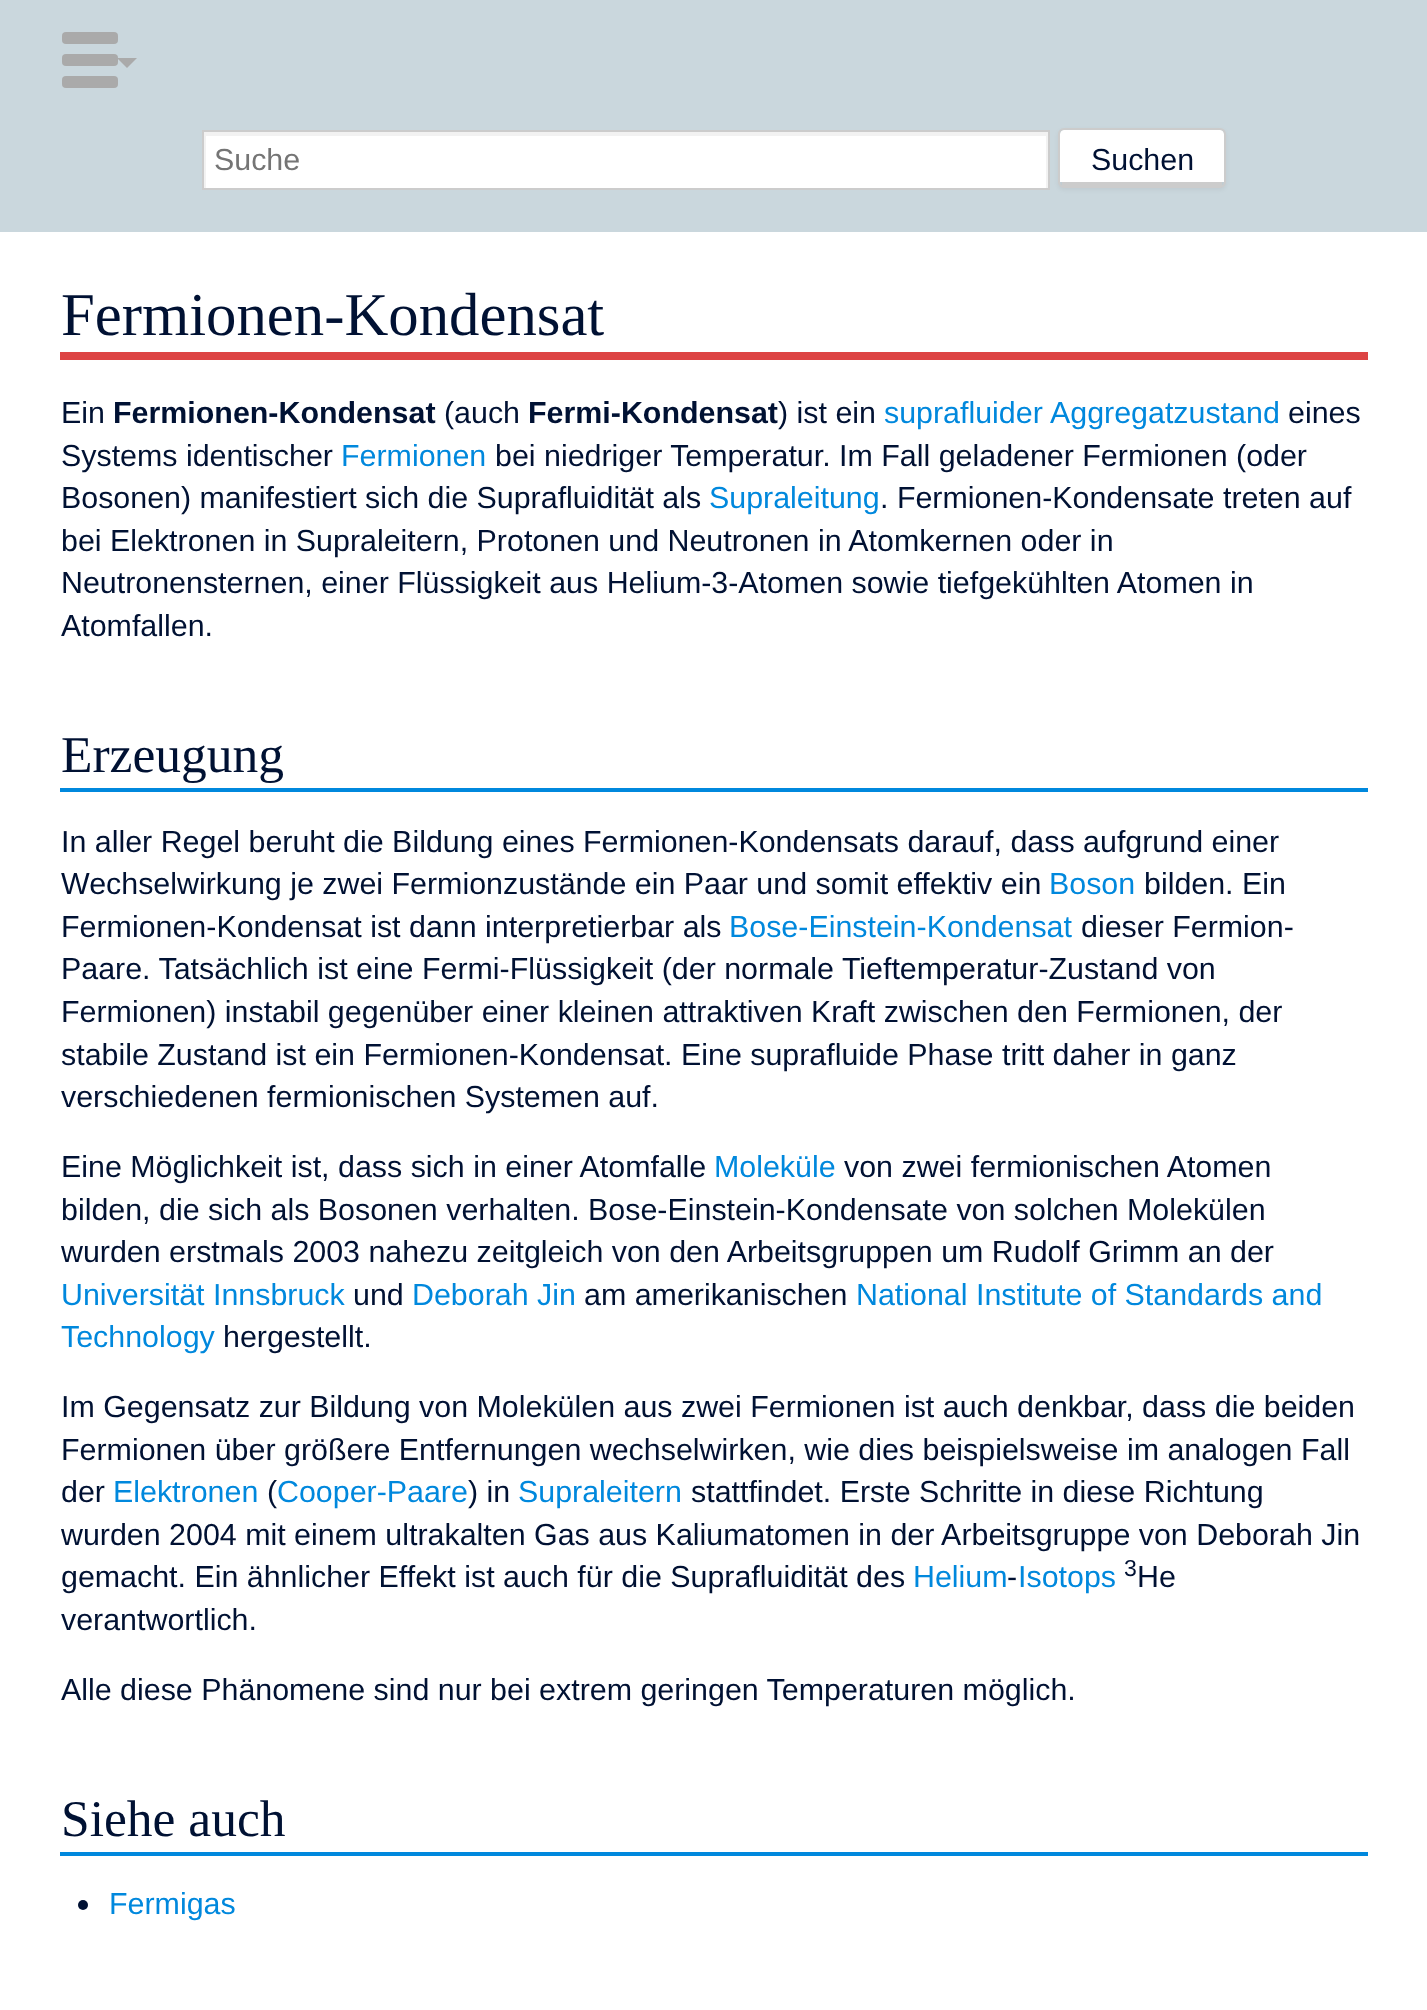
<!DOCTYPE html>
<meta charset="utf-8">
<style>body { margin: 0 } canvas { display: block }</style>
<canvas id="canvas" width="1427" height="2010"></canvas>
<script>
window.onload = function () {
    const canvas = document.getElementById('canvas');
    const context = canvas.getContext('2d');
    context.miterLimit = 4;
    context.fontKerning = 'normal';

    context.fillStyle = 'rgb(202, 215, 221)';
    context.fillRect(0, 0, 1427, 2010);
    context.fillStyle = 'rgb(255, 255, 255)';
    context.fillRect(206, 136, 840, 52);
    context.save();
    context.beginPath();
    context.rect(204, 132, 844, 56);
    context.clip();
    context.fillStyle = 'rgb(242, 242, 242)';
    context.beginPath();
    context.moveTo(6, -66);
    context.lineTo(1246, -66);
    context.lineTo(1246, 386);
    context.lineTo(6, 386);
    context.closePath();
    context.moveTo(206, 136);
    context.lineTo(1046, 136);
    context.lineTo(1046, 188);
    context.lineTo(206, 188);
    context.closePath();
    context.fill('evenodd');
    context.restore();
    context.strokeStyle = 'rgb(204, 204, 204)';
    context.lineWidth = 2;
    context.strokeRect(203, 131, 846, 58);
    context.fillStyle = 'rgba(0, 0, 0, 0.05)';
    context.filter = 'blur(2px)';
    context.beginPath();
    context.roundRect(1058, 130, 168, 60, 6);
    context.fill();
    context.filter = 'none';
    context.fillStyle = 'rgb(255, 255, 255)';
    context.beginPath();
    context.moveTo(1064, 130);
    context.lineTo(1220, 130);
    context.bezierCurveTo(1222, 130, 1224, 132, 1224, 134);
    context.lineTo(1224, 182);
    context.lineTo(1220, 182);
    context.lineTo(1060, 182);
    context.lineTo(1060, 134);
    context.bezierCurveTo(1060, 132, 1062, 130, 1064, 130);
    context.closePath();
    context.fill();
    context.beginPath();
    context.roundRect(1059, 129, 166, 58, 5);
    context.stroke();
    context.fillStyle = 'rgb(204, 204, 204)';
    context.fillRect(1062, 182, 160, 4);
    context.fillStyle = 'rgb(255, 255, 255)';
    context.fillRect(0, 232, 1427, 1778);
    context.fillStyle = 'rgb(170, 170, 170)';
    context.beginPath();
    context.roundRect(62, 76, 56, 12, 4);
    context.fill();
    context.beginPath();
    context.roundRect(62, 54, 56, 12, 4);
    context.fill();
    context.beginPath();
    context.roundRect(62, 32, 56, 12, 4);
    context.fill();
    context.beginPath();
    context.moveTo(137, 58);
    context.lineTo(127, 68);
    context.lineTo(117, 58);
    context.closePath();
    context.fill();
    context.fillStyle = 'rgb(221, 68, 68)';
    context.fillRect(60, 352, 1308, 8);
    context.fillStyle = 'rgb(0, 136, 221)';
    context.fillRect(60, 788, 1308, 4);
    context.fillRect(60, 1852, 1308, 4);
    context.fillStyle = 'rgb(0, 17, 51)';
    context.beginPath();
    context.arc(83, 1905, 5, 0, 2 * Math.PI);
    context.fill();
    context.font = '30.4px Liberation Sans';
    context.fillStyle = 'rgb(117, 117, 117)';
    context.fillText('Suche', 214, 170);
    context.fillStyle = 'rgb(0, 17, 51)';
    context.fillText('Suchen', 1091, 170);
    context.font = '60.75px Liberation Serif';
    context.fillText('Fermionen-Kondensat', 61, 335);
    context.font = '30.4px Liberation Sans';
    context.fillText('Ein', 61, 423);
    context.font = 'bold 30.4px Liberation Sans';
    context.fillText('Fermionen-Kondensat', 113, 423);
    context.font = '30.4px Liberation Sans';
    context.fillText('(auch', 444, 423);
    context.font = 'bold 30.4px Liberation Sans';
    context.fillText('Fermi-Kondensat', 528, 423);
    context.font = '30.4px Liberation Sans';
    context.fillText(') ist ein', 778, 423);
    context.fillStyle = 'rgb(0, 136, 221)';
    context.fillText('suprafluider', 884, 423);
    context.fillText('Aggregatzustand', 1050, 423);
    context.fillStyle = 'rgb(0, 17, 51)';
    context.fillText('eines', 1288, 423);
    context.fillText('Systems identischer', 61, 466);
    context.fillStyle = 'rgb(0, 136, 221)';
    context.fillText('Fermionen', 341, 466);
    context.fillStyle = 'rgb(0, 17, 51)';
    context.fillText('bei niedriger Temperatur. Im Fall geladener Fermionen (oder', 495, 466);
    context.fillText('Bosonen) manifestiert sich die Suprafluidität als', 61, 508);
    context.fillStyle = 'rgb(0, 136, 221)';
    context.fillText('Supraleitung', 709, 508);
    context.fillStyle = 'rgb(0, 17, 51)';
    context.fillText('. Fermionen-Kondensate treten auf', 880, 508);
    context.fillText('bei Elektronen in Supraleitern, Protonen und Neutronen in Atomkernen oder in', 61, 551);
    context.fillText('Neutronensternen, einer Flüssigkeit aus Helium-3-Atomen sowie tiefgekühlten Atomen in', 61, 593);
    context.fillText('Atomfallen.', 61, 636);
    context.font = '51.5px Liberation Serif';
    context.fillText('Erzeugung', 61, 772);
    context.font = '30.4px Liberation Sans';
    context.fillText('In aller Regel beruht die Bildung eines Fermionen-Kondensats darauf, dass aufgrund einer', 61, 852);
    context.fillText('Wechselwirkung je zwei Fermionzustände ein Paar und somit effektiv ein', 61, 894);
    context.fillStyle = 'rgb(0, 136, 221)';
    context.fillText('Boson', 1049, 894);
    context.fillStyle = 'rgb(0, 17, 51)';
    context.fillText('bilden. Ein', 1144, 894);
    context.fillText('Fermionen-Kondensat ist dann interpretierbar als', 61, 937);
    context.fillStyle = 'rgb(0, 136, 221)';
    context.fillText('Bose-Einstein-Kondensat', 729, 937);
    context.fillStyle = 'rgb(0, 17, 51)';
    context.fillText('dieser Fermion-', 1081, 937);
    context.fillText('Paare. Tatsächlich ist eine Fermi-Flüssigkeit (der normale Tieftemperatur-Zustand von', 61, 979);
    context.fillText('Fermionen) instabil gegenüber einer kleinen attraktiven Kraft zwischen den Fermionen, der', 61, 1022);
    context.fillText('stabile Zustand ist ein Fermionen-Kondensat. Eine suprafluide Phase tritt daher in ganz', 61, 1065);
    context.fillText('verschiedenen fermionischen Systemen auf.', 61, 1107);
    context.fillText('Eine Möglichkeit ist, dass sich in einer Atomfalle', 61, 1177);
    context.fillStyle = 'rgb(0, 136, 221)';
    context.fillText('Moleküle', 714, 1177);
    context.fillStyle = 'rgb(0, 17, 51)';
    context.fillText('von zwei fermionischen Atomen', 844, 1177);
    context.fillText('bilden, die sich als Bosonen verhalten. Bose-Einstein-Kondensate von solchen Molekülen', 61, 1220);
    context.fillText('wurden erstmals 2003 nahezu zeitgleich von den Arbeitsgruppen um Rudolf Grimm an der', 61, 1262);
    context.fillStyle = 'rgb(0, 136, 221)';
    context.fillText('Universität Innsbruck', 61, 1305);
    context.fillStyle = 'rgb(0, 17, 51)';
    context.fillText('und', 353, 1305);
    context.fillStyle = 'rgb(0, 136, 221)';
    context.fillText('Deborah Jin', 412, 1305);
    context.fillStyle = 'rgb(0, 17, 51)';
    context.fillText('am amerikanischen', 584, 1305);
    context.fillStyle = 'rgb(0, 136, 221)';
    context.fillText('National Institute of Standards and', 856, 1305);
    context.fillText('Technology', 61, 1347);
    context.fillStyle = 'rgb(0, 17, 51)';
    context.fillText('hergestellt.', 223, 1347);
    context.fillText('Im Gegensatz zur Bildung von Molekülen aus zwei Fermionen ist auch denkbar, dass die beiden', 61, 1417);
    context.fillText('Fermionen über größere Entfernungen wechselwirken, wie dies beispielsweise im analogen Fall', 61, 1460);
    context.fillText('der', 61, 1502);
    context.fillStyle = 'rgb(0, 136, 221)';
    context.fillText('Elektronen', 113, 1502);
    context.fillStyle = 'rgb(0, 17, 51)';
    context.fillText('(', 267, 1502);
    context.fillStyle = 'rgb(0, 136, 221)';
    context.fillText('Cooper-Paare', 277, 1502);
    context.fillStyle = 'rgb(0, 17, 51)';
    context.fillText(') in', 468, 1502);
    context.fillStyle = 'rgb(0, 136, 221)';
    context.fillText('Supraleitern', 518, 1502);
    context.fillStyle = 'rgb(0, 17, 51)';
    context.fillText('stattfindet. Erste Schritte in diese Richtung', 691, 1502);
    context.fillText('wurden 2004 mit einem ultrakalten Gas aus Kaliumatomen in der Arbeitsgruppe von Deborah Jin', 61, 1545);
    context.fillText('gemacht. Ein ähnlicher Effekt ist auch für die Suprafluidität des', 61, 1587);
    context.fillStyle = 'rgb(0, 136, 221)';
    context.fillText('Helium', 913, 1587);
    context.fillStyle = 'rgb(0, 17, 51)';
    context.fillText('-', 1007, 1587);
    context.fillStyle = 'rgb(0, 136, 221)';
    context.fillText('Isotops', 1018, 1587);
    context.font = '23px Liberation Sans';
    context.fillStyle = 'rgb(0, 17, 51)';
    context.fillText('3', 1124, 1576);
    context.font = '30.4px Liberation Sans';
    context.fillText('He', 1137, 1587);
    context.fillText('verantwortlich.', 61, 1630);
    context.fillText('Alle diese Phänomene sind nur bei extrem geringen Temperaturen möglich.', 61, 1700);
    context.font = '51.5px Liberation Serif';
    context.fillText('Siehe auch', 61, 1836);
    context.font = '30.4px Liberation Sans';
    context.fillStyle = 'rgb(0, 136, 221)';
    context.fillText('Fermigas', 109, 1914);
};
</script>
